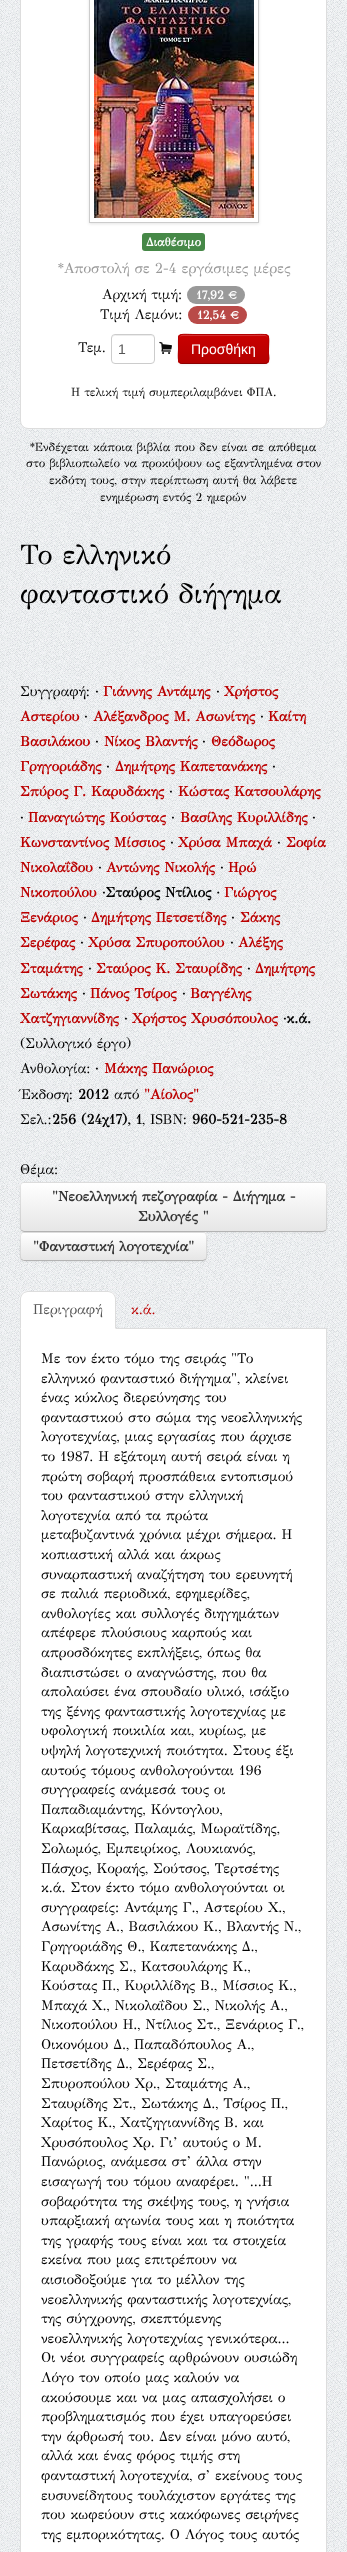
<!DOCTYPE html>
<meta charset="utf-8">
<style>body { margin: 0 } canvas { display: block }</style>
<canvas id="canvas" width="347" height="2552"></canvas>
<img id="img1" src="images/1.png" hidden>
<img id="img2" src="images/2.png" hidden>
<img id="img3" src="images/3.png" hidden>
<script>
window.onload = function () {
    const canvas = document.getElementById('canvas');
    const context = canvas.getContext('2d');
    context.miterLimit = 4;
    context.fontKerning = 'normal';
    let gradient;

    context.fillStyle = 'rgb(255, 255, 255)';
    context.fillRect(0, 0, 347, 2552);
    context.drawImage(document.getElementById('img1'), 0, 0, 347, 2552);
    context.beginPath();
    context.roundRect(20.5, -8.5, 306, 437, 7.5);
    context.fill();
    context.strokeStyle = 'rgb(221, 221, 221)';
    context.stroke();
    context.save();
    context.beginPath();
    context.moveTo(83, 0);
    context.lineTo(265, 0);
    context.lineTo(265, 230);
    context.lineTo(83, 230);
    context.closePath();
    context.moveTo(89, -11);
    context.lineTo(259, -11);
    context.lineTo(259, 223);
    context.lineTo(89, 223);
    context.closePath();
    context.clip('evenodd');
    context.fillStyle = 'rgba(0, 0, 0, 0.1)';
    context.filter = 'blur(1.5px)';
    context.beginPath();
    context.rect(89, -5, 170, 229);
    context.fill();
    context.filter = 'none';
    context.restore();
    context.strokeStyle = 'rgb(204, 204, 204)';
    context.strokeRect(89.5, -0.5, 169, 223);
    context.drawImage(document.getElementById('img2'), 94, 0, 160, 218);
    context.fillStyle = 'rgb(70, 136, 71)';
    context.beginPath();
    context.roundRect(142, 233, 63, 18, 3);
    context.fill();
    context.fillStyle = 'rgb(153, 153, 153)';
    context.beginPath();
    context.roundRect(187, 286, 58, 18, 9);
    context.fill();
    context.fillStyle = 'rgb(185, 74, 72)';
    context.beginPath();
    context.roundRect(188, 306, 59, 18, 9);
    context.fill();
    context.fillStyle = 'rgb(236, 236, 236)';
    context.beginPath();
    context.moveTo(115, 336);
    context.lineTo(151, 336);
    context.bezierCurveTo(153, 336, 154, 337, 154, 339);
    context.bezierCurveTo(154, 334, 149, 335, 145, 335);
    context.lineTo(121, 335);
    context.bezierCurveTo(117, 335, 112, 334, 112, 339);
    context.bezierCurveTo(112, 337, 113, 336, 115, 336);
    context.closePath();
    context.fill();
    context.beginPath();
    context.roundRect(111.5, 334.5, 43, 29, 3.5);
    context.stroke();
    context.drawImage(document.getElementById('img3'), 159, 341, 13, 13);
    context.fillStyle = 'rgba(0, 0, 0, 0.05)';
    context.filter = 'blur(1px)';
    context.beginPath();
    context.roundRect(178, 335, 91, 30, 4);
    context.fill();
    context.filter = 'none';
    context.fillStyle = 'rgb(201, 0, 0)';
    context.beginPath();
    context.roundRect(178, 334, 91, 30, 4);
    context.fill();
    context.save();
    context.beginPath();
    context.roundRect(178, 334, 91, 30, 4);
    context.clip();
    gradient = context.createLinearGradient(224, 335, 224, 363);
    gradient.addColorStop(0, 'rgb(201, 0, 0)');
    gradient.addColorStop(1, 'rgb(181, 0, 0)');
    context.fillStyle = gradient;
    context.fillRect(178, 335, 91, 28);
    context.restore();
    context.fillStyle = 'rgb(212, 51, 51)';
    context.beginPath();
    context.moveTo(182, 336);
    context.lineTo(265, 336);
    context.bezierCurveTo(267, 336, 268, 337, 268, 339);
    context.bezierCurveTo(268, 331, 255, 335, 251, 335);
    context.lineTo(196, 335);
    context.bezierCurveTo(192, 335, 179, 331, 179, 339);
    context.bezierCurveTo(179, 337, 180, 336, 182, 336);
    context.closePath();
    context.fill();
    context.beginPath();
    context.moveTo(267.5, 362.5);
    context.lineTo(265.5, 363.5);
    context.lineTo(181.5, 363.5);
    context.lineTo(179.5, 362.5);
    context.strokeStyle = 'rgb(141, 0, 0)';
    context.stroke();
    context.beginPath();
    context.moveTo(179.5, 362.5);
    context.bezierCurveTo(177.5, 360.5, 178.5, 352, 178.5, 349);
    context.bezierCurveTo(178.5, 331.5, 176.5, 334.5, 196, 334.5);
    context.lineTo(251, 334.5);
    context.bezierCurveTo(272.5, 334.5, 268.5, 332, 268.5, 352.5);
    context.bezierCurveTo(268.5, 355.5, 270, 360, 267.5, 362.5);
    context.strokeStyle = 'rgb(179, 0, 0)';
    context.stroke();
    context.fillStyle = 'rgba(0, 0, 0, 0.05)';
    context.filter = 'blur(1px)';
    context.beginPath();
    context.roundRect(20, 1183, 307, 50, 4);
    context.fill();
    context.filter = 'none';
    context.fillStyle = 'rgb(245, 245, 245)';
    context.beginPath();
    context.roundRect(20, 1182, 307, 50, 4);
    context.fill();
    context.save();
    context.beginPath();
    context.roundRect(20, 1182, 307, 50, 4);
    context.clip();
    gradient = context.createLinearGradient(174, 1183, 174, 1231);
    gradient.addColorStop(0, 'rgb(255, 255, 255)');
    gradient.addColorStop(1, 'rgb(230, 230, 230)');
    context.fillStyle = gradient;
    context.fillRect(20, 1183, 307, 48);
    context.restore();
    context.beginPath();
    context.moveTo(325.5, 1230.5);
    context.lineTo(323, 1231.5);
    context.lineTo(24, 1231.5);
    context.lineTo(21.5, 1230.5);
    context.strokeStyle = 'rgb(179, 179, 179)';
    context.stroke();
    context.beginPath();
    context.moveTo(21.5, 1230.5);
    context.bezierCurveTo(21, 1230, 20.5, 1229, 20.5, 1228);
    context.lineTo(20.5, 1186);
    context.bezierCurveTo(20.5, 1185, 21, 1184, 21.5, 1183.5);
    context.bezierCurveTo(22, 1183, 23, 1182.5, 24, 1182.5);
    context.lineTo(323, 1182.5);
    context.bezierCurveTo(324, 1182.5, 325, 1183, 325.5, 1183.5);
    context.bezierCurveTo(326, 1184, 326.5, 1185, 326.5, 1186);
    context.lineTo(326.5, 1228);
    context.bezierCurveTo(326.5, 1229, 326, 1230, 325.5, 1230.5);
    context.strokeStyle = 'rgba(0, 0, 0, 0.1)';
    context.stroke();
    context.fillStyle = 'rgba(0, 0, 0, 0.05)';
    context.filter = 'blur(1px)';
    context.beginPath();
    context.roundRect(20, 1233, 187, 29, 4);
    context.fill();
    context.filter = 'none';
    context.fillStyle = 'rgb(245, 245, 245)';
    context.beginPath();
    context.roundRect(20, 1232, 187, 29, 4);
    context.fill();
    context.save();
    context.beginPath();
    context.roundRect(20, 1232, 187, 29, 4);
    context.clip();
    gradient = context.createLinearGradient(114, 1233, 114, 1260);
    gradient.addColorStop(0, 'rgb(255, 255, 255)');
    gradient.addColorStop(1, 'rgb(230, 230, 230)');
    context.fillStyle = gradient;
    context.fillRect(20, 1233, 187, 27);
    context.restore();
    context.beginPath();
    context.moveTo(205.5, 1259.5);
    context.lineTo(203, 1260.5);
    context.lineTo(23.5, 1260.5);
    context.lineTo(21.5, 1259.5);
    context.strokeStyle = 'rgb(179, 179, 179)';
    context.stroke();
    context.beginPath();
    context.moveTo(21.5, 1259.5);
    context.bezierCurveTo(19.5, 1257.5, 20.5, 1249, 20.5, 1246.5);
    context.lineTo(20.5, 1239.5);
    context.bezierCurveTo(20.5, 1237, 20, 1232.5, 24, 1232.5);
    context.lineTo(203, 1232.5);
    context.bezierCurveTo(207, 1232.5, 206.5, 1237, 206.5, 1239.5);
    context.lineTo(206.5, 1246.5);
    context.bezierCurveTo(206.5, 1249, 207.5, 1257.5, 205.5, 1259.5);
    context.strokeStyle = 'rgba(0, 0, 0, 0.1)';
    context.stroke();
    context.fillStyle = 'rgb(221, 221, 221)';
    context.fillRect(116, 1328, 211, 1);
    context.fillStyle = 'rgb(255, 255, 255)';
    context.beginPath();
    context.roundRect(20, 1291, 96, 38, [8, 8, 0, 0]);
    context.fill();
    context.fillStyle = 'rgb(221, 221, 221)';
    context.beginPath();
    context.moveTo(28, 1291);
    context.bezierCurveTo(26, 1291, 24, 1292, 22, 1294);
    context.lineTo(23, 1294);
    context.bezierCurveTo(24, 1293, 26, 1292, 28, 1292);
    context.lineTo(108, 1292);
    context.bezierCurveTo(110, 1292, 112, 1293, 113, 1294);
    context.lineTo(114, 1294);
    context.bezierCurveTo(112, 1292, 110, 1291, 108, 1291);
    context.closePath();
    context.fill();
    context.beginPath();
    context.moveTo(116, 1329);
    context.lineTo(116, 1299);
    context.bezierCurveTo(116, 1297, 115, 1295, 113.5, 1293.5);
    context.lineTo(113, 1294);
    context.bezierCurveTo(114, 1295, 115, 1297, 115, 1299);
    context.lineTo(115, 1328);
    context.closePath();
    context.fill();
    context.beginPath();
    context.moveTo(20, 1329);
    context.lineTo(21, 1328);
    context.lineTo(21, 1299);
    context.bezierCurveTo(21, 1297, 22, 1295, 23, 1294);
    context.lineTo(22.5, 1293.5);
    context.bezierCurveTo(21, 1295, 20, 1297, 20, 1299);
    context.closePath();
    context.fill();
    context.fillStyle = 'rgb(255, 255, 255)';
    context.fillRect(21, 1329, 305, 1223);
    context.fillStyle = 'rgb(221, 221, 221)';
    context.beginPath();
    context.moveTo(20, 1329);
    context.lineTo(327, 1329);
    context.lineTo(327, 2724);
    context.bezierCurveTo(327, 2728, 323, 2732, 319, 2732);
    context.lineTo(28, 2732);
    context.bezierCurveTo(24, 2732, 20, 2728, 20, 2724);
    context.closePath();
    context.moveTo(21, 1329);
    context.lineTo(326, 1329);
    context.lineTo(326, 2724);
    context.bezierCurveTo(326, 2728, 323, 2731, 319, 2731);
    context.lineTo(28, 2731);
    context.bezierCurveTo(24, 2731, 21, 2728, 21, 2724);
    context.closePath();
    context.fill('evenodd');
    context.font = 'bold 12px GFS Didot';
    context.fillStyle = 'rgb(255, 255, 255)';
    context.fillText('Διαθέσιμο', 146, 246);
    context.font = '14.5px GFS Didot';
    context.fillStyle = 'rgb(153, 153, 153)';
    context.fillText('*Αποστολή σε 2-4 εργάσιμες μέρες', 58, 273);
    context.font = '14px GFS Didot';
    context.fillStyle = 'rgb(10, 10, 10)';
    context.fillText('Αρχική τιμή:', 102, 299);
    context.font = 'bold 12px GFS Didot';
    context.fillStyle = 'rgb(255, 255, 255)';
    context.fillText('17,92 €', 196, 299);
    context.font = '14px GFS Didot';
    context.fillStyle = 'rgb(10, 10, 10)';
    context.fillText('Τιμή Λεμόνι:', 100, 319);
    context.font = 'bold 12px GFS Didot';
    context.fillStyle = 'rgb(255, 255, 255)';
    context.fillText('12,54 €', 197, 319);
    context.font = '14px GFS Didot';
    context.fillStyle = 'rgb(10, 10, 10)';
    context.fillText('Τεμ.', 78, 352);
    context.font = '14px Liberation Sans';
    context.fillStyle = 'rgb(85, 85, 85)';
    context.fillText('1', 118, 354);
    context.fillStyle = 'rgb(255, 255, 255)';
    context.fillText('Προσθήκη', 191, 354);
    context.font = '11.9px GFS Didot';
    context.fillStyle = 'rgb(10, 10, 10)';
    context.fillText('H τελική τιμή συμπεριλαμβάνει ΦΠΑ.', 71, 396);
    context.fillStyle = 'rgb(0, 0, 0)';
    context.fillText('*Ενδέχεται κάποια βιβλία που δεν είναι σε απόθεμα', 30, 451);
    context.fillText('στο βιβλιοπωλείο να προκύψουν ως εξαντλημένα στον', 26, 467);
    context.fillText('εκδότη τους, στην περίπτωση αυτή θα λάβετε', 49, 484);
    context.fillText('ενημέρωση εντός 2 ημερών', 100, 501);
    context.font = '28px GFS Didot';
    context.fillText('Το ελληνικό', 20, 564);
    context.fillText('φανταστικό διήγημα', 20, 603);
    context.font = '14px GFS Didot';
    context.fillText('Συγγραφή:', 20, 696);
    context.font = 'bold 14px GFS Didot';
    context.fillText('·', 95, 696);
    context.fillStyle = 'rgb(187, 0, 0)';
    context.fillText('Γιάννης Αντάμης', 103, 696);
    context.fillStyle = 'rgb(0, 0, 0)';
    context.fillText('·', 216, 696);
    context.fillStyle = 'rgb(187, 0, 0)';
    context.fillText('Χρήστος', 224, 696);
    context.fillText('Αστερίου', 20, 721);
    context.fillStyle = 'rgb(0, 0, 0)';
    context.fillText('·', 84, 721);
    context.fillStyle = 'rgb(187, 0, 0)';
    context.fillText('Αλέξανδρος Μ. Ασωνίτης', 93, 721);
    context.fillStyle = 'rgb(0, 0, 0)';
    context.fillText('·', 260, 721);
    context.fillStyle = 'rgb(187, 0, 0)';
    context.fillText('Καίτη', 268, 721);
    context.fillText('Βασιλάκου', 20, 746);
    context.fillStyle = 'rgb(0, 0, 0)';
    context.fillText('·', 95, 746);
    context.fillStyle = 'rgb(187, 0, 0)';
    context.fillText('Νίκος Βλαντής', 104, 746);
    context.fillStyle = 'rgb(0, 0, 0)';
    context.fillText('·', 202, 746);
    context.fillStyle = 'rgb(187, 0, 0)';
    context.fillText('Θεόδωρος', 211, 746);
    context.fillText('Γρηγοριάδης', 20, 771);
    context.fillStyle = 'rgb(0, 0, 0)';
    context.fillText('·', 106, 771);
    context.fillStyle = 'rgb(187, 0, 0)';
    context.fillText('Δημήτρης Καπετανάκης', 115, 771);
    context.fillStyle = 'rgb(0, 0, 0)';
    context.fillText('·', 272, 771);
    context.fillStyle = 'rgb(187, 0, 0)';
    context.fillText('Σπύρος Γ. Καρυδάκης', 20, 796);
    context.fillStyle = 'rgb(0, 0, 0)';
    context.fillText('·', 169, 796);
    context.fillStyle = 'rgb(187, 0, 0)';
    context.fillText('Κώστας Κατσουλάρης', 178, 796);
    context.fillStyle = 'rgb(0, 0, 0)';
    context.fillText('·', 20, 822);
    context.fillStyle = 'rgb(187, 0, 0)';
    context.fillText('Παναγιώτης Κούστας', 28, 822);
    context.fillStyle = 'rgb(0, 0, 0)';
    context.fillText('·', 171, 822);
    context.fillStyle = 'rgb(187, 0, 0)';
    context.fillText('Βασίλης Κυριλλίδης', 180, 822);
    context.fillStyle = 'rgb(0, 0, 0)';
    context.fillText('·', 312, 822);
    context.fillStyle = 'rgb(187, 0, 0)';
    context.fillText('Κωνσταντίνος Μίσσιος', 20, 847);
    context.fillStyle = 'rgb(0, 0, 0)';
    context.fillText('·', 170, 847);
    context.fillStyle = 'rgb(187, 0, 0)';
    context.fillText('Χρύσα Μπαχά', 178, 847);
    context.fillStyle = 'rgb(0, 0, 0)';
    context.fillText('·', 277, 847);
    context.fillStyle = 'rgb(187, 0, 0)';
    context.fillText('Σοφία', 286, 847);
    context.fillText('Νικολαΐδου', 20, 872);
    context.fillStyle = 'rgb(0, 0, 0)';
    context.fillText('·', 98, 872);
    context.fillStyle = 'rgb(187, 0, 0)';
    context.fillText('Αντώνης Νικολής', 106, 872);
    context.fillStyle = 'rgb(0, 0, 0)';
    context.fillText('·', 220, 872);
    context.fillStyle = 'rgb(187, 0, 0)';
    context.fillText('Ηρώ', 228, 872);
    context.fillText('Νικοπούλου', 20, 897);
    context.fillStyle = 'rgb(0, 0, 0)';
    context.fillText('·Σταύρος Ντίλιος ·', 102, 897);
    context.fillStyle = 'rgb(187, 0, 0)';
    context.fillText('Γιώργος', 224, 897);
    context.fillText('Ξενάριος', 20, 922);
    context.fillStyle = 'rgb(0, 0, 0)';
    context.fillText('·', 83, 922);
    context.fillStyle = 'rgb(187, 0, 0)';
    context.fillText('Δημήτρης Πετσετίδης', 91, 922);
    context.fillStyle = 'rgb(0, 0, 0)';
    context.fillText('·', 231, 922);
    context.fillStyle = 'rgb(187, 0, 0)';
    context.fillText('Σάκης', 240, 922);
    context.fillText('Σερέφας', 20, 947);
    context.fillStyle = 'rgb(0, 0, 0)';
    context.fillText('·', 80, 947);
    context.fillStyle = 'rgb(187, 0, 0)';
    context.fillText('Χρύσα Σπυροπούλου', 88, 947);
    context.fillStyle = 'rgb(0, 0, 0)';
    context.fillText('·', 230, 947);
    context.fillStyle = 'rgb(187, 0, 0)';
    context.fillText('Αλέξης', 238, 947);
    context.fillText('Σταμάτης', 20, 973);
    context.fillStyle = 'rgb(0, 0, 0)';
    context.fillText('·', 88, 973);
    context.fillStyle = 'rgb(187, 0, 0)';
    context.fillText('Σταύρος Κ. Σταυρίδης', 96, 973);
    context.fillStyle = 'rgb(0, 0, 0)';
    context.fillText('·', 247, 973);
    context.fillStyle = 'rgb(187, 0, 0)';
    context.fillText('Δημήτρης', 255, 973);
    context.fillText('Σωτάκης', 20, 998);
    context.fillStyle = 'rgb(0, 0, 0)';
    context.fillText('·', 82, 998);
    context.fillStyle = 'rgb(187, 0, 0)';
    context.fillText('Πάνος Τσίρος', 90, 998);
    context.fillStyle = 'rgb(0, 0, 0)';
    context.fillText('·', 182, 998);
    context.fillStyle = 'rgb(187, 0, 0)';
    context.fillText('Βαγγέλης', 190, 998);
    context.fillText('Χατζηγιαννίδης', 20, 1023);
    context.fillStyle = 'rgb(0, 0, 0)';
    context.fillText('·', 124, 1023);
    context.fillStyle = 'rgb(187, 0, 0)';
    context.fillText('Χρήστος Χρυσόπουλος', 132, 1023);
    context.fillStyle = 'rgb(0, 0, 0)';
    context.fillText('·κ.ά.', 283, 1023);
    context.font = '14px GFS Didot';
    context.fillText('(Συλλογικό έργο)', 20, 1048);
    context.fillText('Ανθολογία:', 20, 1073);
    context.font = 'bold 14px GFS Didot';
    context.fillText('·', 95, 1073);
    context.fillStyle = 'rgb(187, 0, 0)';
    context.fillText('Μάκης Πανώριος', 104, 1073);
    context.font = '14px GFS Didot';
    context.fillStyle = 'rgb(0, 0, 0)';
    context.fillText('Έκδοση:', 20, 1099);
    context.font = 'bold 14px GFS Didot';
    context.fillText('2012', 78, 1099);
    context.font = '14px GFS Didot';
    context.fillText('από', 114, 1099);
    context.font = 'bold 14px GFS Didot';
    context.fillStyle = 'rgb(187, 0, 0)';
    context.fillText('"Αίολος"', 144, 1099);
    context.font = '14px GFS Didot';
    context.fillStyle = 'rgb(0, 0, 0)';
    context.fillText('Σελ.:', 20, 1124);
    context.font = 'bold 14px GFS Didot';
    context.fillText('256 (24χ17), 1', 52, 1124);
    context.font = '14px GFS Didot';
    context.fillText(', ISBN:', 142, 1124);
    context.font = 'bold 14px GFS Didot';
    context.fillText('960-521-235-8', 192, 1124);
    context.font = '14px GFS Didot';
    context.fillText('Θέμα:', 20, 1174);
    context.font = 'bold 14px GFS Didot';
    context.fillStyle = 'rgb(51, 51, 51)';
    context.fillText('"Νεοελληνική πεζογραφία - Διήγημα -', 52, 1201);
    context.fillText('Συλλογές "', 138, 1221);
    context.fillText('"Φανταστική λογοτεχνία"', 33, 1251);
    context.font = '14px GFS Didot';
    context.fillStyle = 'rgb(85, 85, 85)';
    context.fillText('Περιγραφή', 33, 1314);
    context.fillStyle = 'rgb(187, 0, 0)';
    context.fillText('κ.ά.', 131, 1314);
    context.fillStyle = 'rgb(0, 0, 0)';
    context.fillText('Με τον έκτο τόμο της σειράς "Το', 41, 1363);
    context.fillText('ελληνικό φανταστικό διήγημα", κλείνει', 41, 1383);
    context.fillText('ένας κύκλος διερεύνησης του', 41, 1402);
    context.fillText('φανταστικού στο σώμα της νεοελληνικής', 41, 1422);
    context.fillText('λογοτεχνίας, μιας εργασίας που άρχισε', 41, 1441);
    context.fillText('το 1987. H εξάτομη αυτή σειρά είναι η', 41, 1461);
    context.fillText('πρώτη σοβαρή προσπάθεια εντοπισμού', 41, 1481);
    context.fillText('του φανταστικού στην ελληνική', 41, 1500);
    context.fillText('λογοτεχνία από τα πρώτα', 41, 1520);
    context.fillText('μεταβυζαντινά χρόνια μέχρι σήμερα. H', 41, 1539);
    context.fillText('κοπιαστική αλλά και άκρως', 41, 1559);
    context.fillText('συναρπαστική αναζήτηση του ερευνητή', 41, 1579);
    context.fillText('σε παλιά περιοδικά, εφημερίδες,', 41, 1598);
    context.fillText('ανθολογίες και συλλογές διηγημάτων', 41, 1618);
    context.fillText('απέφερε πλούσιους καρπούς και', 41, 1637);
    context.fillText('απροσδόκητες εκπλήξεις, όπως θα', 41, 1657);
    context.fillText('διαπιστώσει ο αναγνώστης, που θα', 41, 1677);
    context.fillText('απολαύσει ένα σπουδαίο υλικό, ισάξιο', 41, 1696);
    context.fillText('της ξένης φανταστικής λογοτεχνίας με', 41, 1716);
    context.fillText('υφολογική ποικιλία και, κυρίως, με', 41, 1735);
    context.fillText('υψηλή λογοτεχνική ποιότητα. Στους έξι', 41, 1755);
    context.fillText('αυτούς τόμους ανθολογούνται 196', 41, 1775);
    context.fillText('συγγραφείς ανάμεσά τους οι', 41, 1794);
    context.fillText('Παπαδιαμάντης, Κόντογλου,', 41, 1814);
    context.fillText('Καρκαβίτσας, Παλαμάς, Μωραϊτίδης,', 41, 1833);
    context.fillText('Σολωμός, Εμπειρίκος, Λουκιανός,', 41, 1853);
    context.fillText('Πάσχος, Κοραής, Σούτσος, Τερτσέτης', 41, 1873);
    context.fillText('κ.ά. Στον έκτο τόμο ανθολογούνται οι', 41, 1892);
    context.fillText('συγγραφείς: Αντάμης Γ., Αστερίου Χ.,', 41, 1912);
    context.fillText('Ασωνίτης Α., Βασιλάκου Κ., Βλαντής Ν.,', 41, 1931);
    context.fillText('Γρηγοριάδης Θ., Καπετανάκης Δ.,', 41, 1951);
    context.fillText('Καρυδάκης Σ., Κατσουλάρης Κ.,', 41, 1971);
    context.fillText('Κούστας Π., Κυριλλίδης Β., Μίσσιος Κ.,', 41, 1990);
    context.fillText('Μπαχά Χ., Νικολαΐδου Σ., Νικολής Α.,', 41, 2010);
    context.fillText('Νικοπούλου Η., Ντίλιος Στ., Ξενάριος Γ.,', 41, 2029);
    context.fillText('Οικονόμου Δ., Παπαδόπουλος Α.,', 41, 2049);
    context.fillText('Πετσετίδης Δ., Σερέφας Σ.,', 41, 2068);
    context.fillText('Σπυροπούλου Χρ., Σταμάτης Α.,', 41, 2088);
    context.fillText('Σταυρίδης Στ., Σωτάκης Δ., Τσίρος Π.,', 41, 2108);
    context.fillText('Χαρίτος Κ., Χατζηγιαννίδης Β. και', 41, 2127);
    context.fillText('Χρυσόπουλος Χρ. Γι’ αυτούς ο Μ.', 41, 2147);
    context.fillText('Πανώριος, ανάμεσα στ’ άλλα στην', 41, 2166);
    context.fillText('εισαγωγή του τόμου αναφέρει. "...Η', 41, 2186);
    context.fillText('σοβαρότητα της σκέψης τους, η γνήσια', 41, 2206);
    context.fillText('υπαρξιακή αγωνία τους και η ποιότητα', 41, 2225);
    context.fillText('της γραφής τους είναι και τα στοιχεία', 41, 2245);
    context.fillText('εκείνα που μας επιτρέπουν να', 41, 2264);
    context.fillText('αισιοδοξούμε για το μέλλον της', 41, 2284);
    context.fillText('νεοελληνικής φανταστικής λογοτεχνίας,', 41, 2304);
    context.fillText('της σύγχρονης, σκεπτόμενης', 41, 2323);
    context.fillText('νεοελληνικής λογοτεχνίας γενικότερα...', 41, 2343);
    context.fillText('Οι νέοι συγγραφείς αρθρώνουν ουσιώδη', 41, 2362);
    context.fillText('Λόγο τον οποίο μας καλούν να', 41, 2382);
    context.fillText('ακούσουμε και να μας απασχολήσει ο', 41, 2402);
    context.fillText('προβληματισμός που έχει υπαγορεύσει', 41, 2421);
    context.fillText('την άρθρωσή του. Δεν είναι μόνο αυτό,', 41, 2441);
    context.fillText('αλλά και ένας φόρος τιμής στη', 41, 2460);
    context.fillText('φανταστική λογοτεχνία, σ’ εκείνους τους', 41, 2480);
    context.fillText('ευσυνείδητους τουλάχιστον εργάτες της', 41, 2500);
    context.fillText('που κωφεύουν στις κακόφωνες σειρήνες', 41, 2519);
    context.fillText('της εμπορικότητας. Ο Λόγος τους αυτός', 41, 2539);
};
</script>
